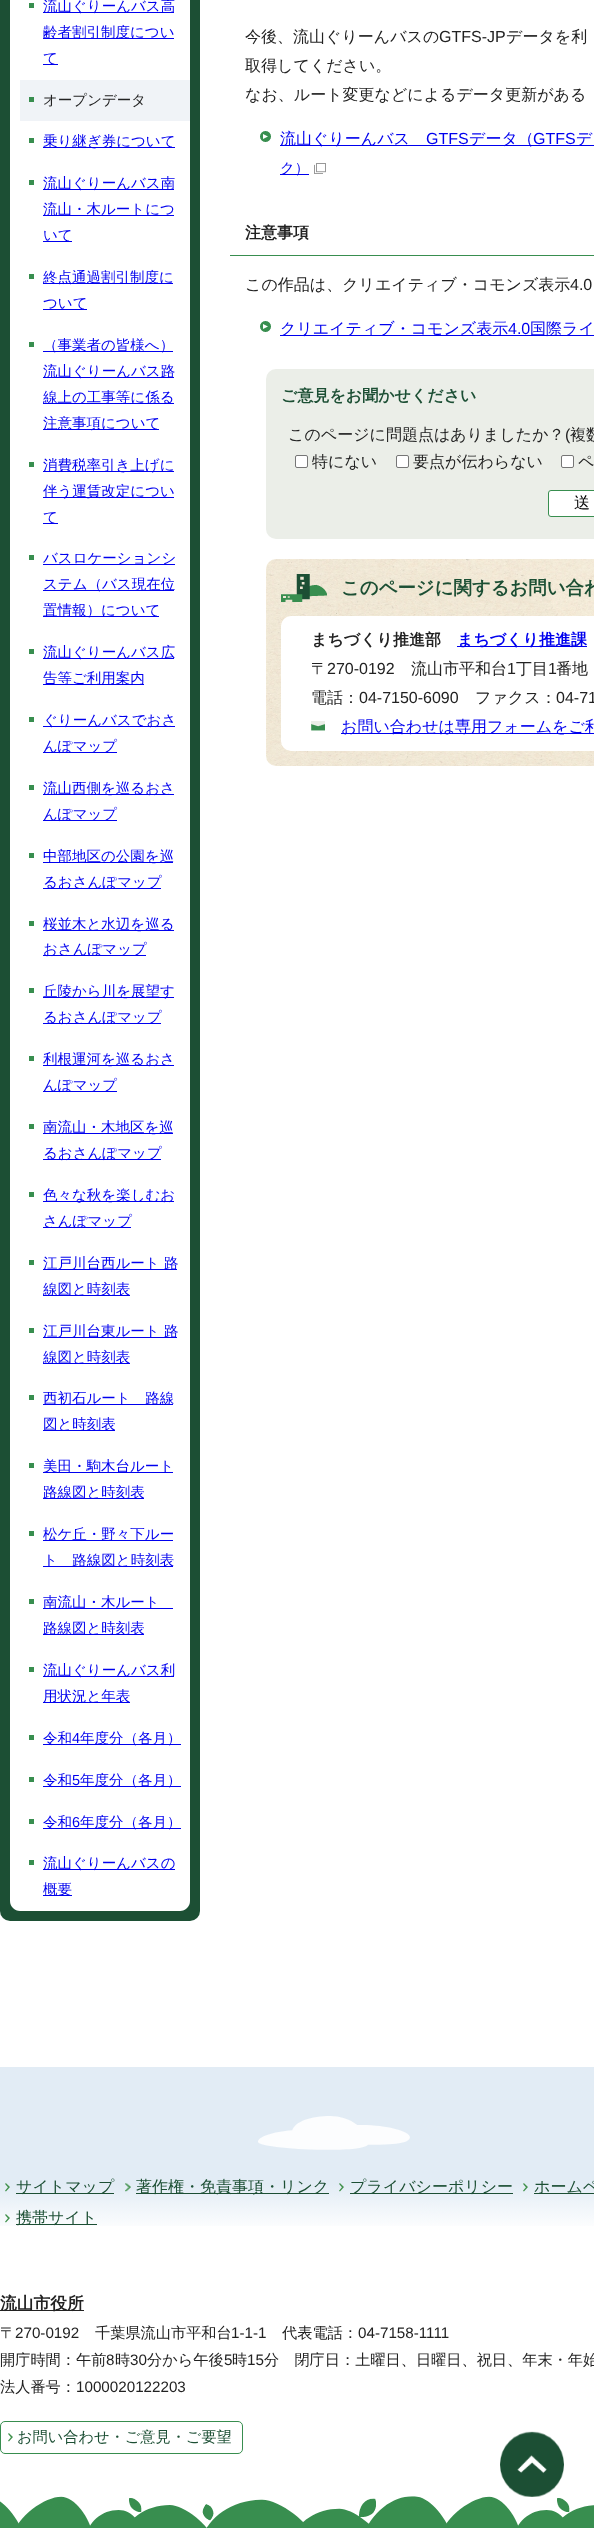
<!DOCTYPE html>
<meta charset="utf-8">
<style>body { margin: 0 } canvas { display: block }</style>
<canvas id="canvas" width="594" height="2528"></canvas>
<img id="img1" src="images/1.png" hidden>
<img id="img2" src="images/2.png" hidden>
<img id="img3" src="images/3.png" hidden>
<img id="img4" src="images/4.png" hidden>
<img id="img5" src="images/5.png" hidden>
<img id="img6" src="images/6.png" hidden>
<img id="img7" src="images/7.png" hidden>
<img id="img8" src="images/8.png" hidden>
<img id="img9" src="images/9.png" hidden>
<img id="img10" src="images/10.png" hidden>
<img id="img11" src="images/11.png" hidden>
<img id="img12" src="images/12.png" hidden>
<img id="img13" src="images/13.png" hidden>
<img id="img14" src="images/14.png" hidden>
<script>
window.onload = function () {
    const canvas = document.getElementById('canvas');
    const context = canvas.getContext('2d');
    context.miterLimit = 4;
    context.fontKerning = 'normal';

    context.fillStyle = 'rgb(255, 255, 255)';
    context.fillRect(0, 0, 594, 2528);
    context.fillStyle = 'rgb(28, 79, 52)';
    context.beginPath();
    context.roundRect(0, -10, 200, 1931, 10);
    context.fill();
    context.fillStyle = 'rgb(255, 255, 255)';
    context.beginPath();
    context.moveTo(10, -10);
    context.lineTo(190, -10);
    context.lineTo(190, 1901);
    context.bezierCurveTo(190, 1906.5, 185.5, 1911, 180, 1911);
    context.lineTo(20, 1911);
    context.bezierCurveTo(14.5, 1911, 10, 1906.5, 10, 1901);
    context.closePath();
    context.fill();
    context.fillStyle = 'rgb(56, 142, 79)';
    context.fillRect(29, 3, 5, 5);
    context.fillStyle = 'rgb(0, 0, 238)';
    context.fillRect(43, 12, 131, 1);
    context.fillRect(43, 38, 131, 1);
    context.fillRect(43, 64, 15, 1);
    context.fillStyle = 'rgb(240, 243, 247)';
    context.fillRect(20, 80, 170, 41);
    context.fillStyle = 'rgb(56, 142, 79)';
    context.fillRect(29, 97, 5, 5);
    context.fillRect(29, 138, 5, 5);
    context.fillStyle = 'rgb(0, 0, 238)';
    context.fillRect(43, 147, 132, 1);
    context.fillStyle = 'rgb(56, 142, 79)';
    context.fillRect(29, 180, 5, 5);
    context.fillStyle = 'rgb(0, 0, 238)';
    context.fillRect(43, 189, 131, 1);
    context.fillRect(43, 215, 131, 1);
    context.fillRect(43, 241, 29, 1);
    context.fillStyle = 'rgb(56, 142, 79)';
    context.fillRect(29, 274, 5, 5);
    context.fillStyle = 'rgb(0, 0, 238)';
    context.fillRect(43, 283, 130, 1);
    context.fillRect(43, 309, 44, 1);
    context.fillStyle = 'rgb(56, 142, 79)';
    context.fillRect(29, 342, 5, 5);
    context.fillStyle = 'rgb(0, 0, 238)';
    context.fillRect(43, 351, 130, 1);
    context.fillRect(43, 377, 131, 1);
    context.fillRect(43, 403, 131, 1);
    context.fillRect(43, 429, 116, 1);
    context.fillStyle = 'rgb(56, 142, 79)';
    context.fillRect(29, 462, 5, 5);
    context.fillStyle = 'rgb(0, 0, 238)';
    context.fillRect(43, 471, 131, 1);
    context.fillRect(43, 497, 131, 1);
    context.fillRect(43, 523, 15, 1);
    context.fillStyle = 'rgb(56, 142, 79)';
    context.fillRect(29, 555, 5, 5);
    context.fillStyle = 'rgb(0, 0, 238)';
    context.fillRect(43, 564, 132, 1);
    context.fillRect(43, 590, 131, 1);
    context.fillRect(43, 616, 116, 1);
    context.fillStyle = 'rgb(56, 142, 79)';
    context.fillRect(29, 649, 5, 5);
    context.fillStyle = 'rgb(0, 0, 238)';
    context.fillRect(43, 658, 131, 1);
    context.fillRect(43, 684, 101, 1);
    context.fillStyle = 'rgb(56, 142, 79)';
    context.fillRect(29, 717, 5, 5);
    context.fillStyle = 'rgb(0, 0, 238)';
    context.fillRect(43, 726, 132, 1);
    context.fillRect(43, 752, 74, 1);
    context.fillStyle = 'rgb(56, 142, 79)';
    context.fillRect(29, 785, 5, 5);
    context.fillStyle = 'rgb(0, 0, 238)';
    context.fillRect(43, 794, 131, 1);
    context.fillRect(43, 820, 74, 1);
    context.fillStyle = 'rgb(56, 142, 79)';
    context.fillRect(29, 853, 5, 5);
    context.fillStyle = 'rgb(0, 0, 238)';
    context.fillRect(43, 862, 130, 1);
    context.fillRect(43, 888, 118, 1);
    context.fillStyle = 'rgb(56, 142, 79)';
    context.fillRect(29, 921, 5, 5);
    context.fillStyle = 'rgb(0, 0, 238)';
    context.fillRect(43, 930, 131, 1);
    context.fillRect(43, 955, 103, 1);
    context.fillStyle = 'rgb(56, 142, 79)';
    context.fillRect(29, 988, 5, 5);
    context.fillStyle = 'rgb(0, 0, 238)';
    context.fillRect(43, 997, 131, 1);
    context.fillRect(43, 1023, 118, 1);
    context.fillStyle = 'rgb(56, 142, 79)';
    context.fillRect(29, 1056, 5, 5);
    context.fillStyle = 'rgb(0, 0, 238)';
    context.fillRect(43, 1065, 131, 1);
    context.fillRect(43, 1091, 74, 1);
    context.fillStyle = 'rgb(56, 142, 79)';
    context.fillRect(29, 1124, 5, 5);
    context.fillStyle = 'rgb(0, 0, 238)';
    context.fillRect(43, 1133, 130, 1);
    context.fillRect(43, 1159, 118, 1);
    context.fillStyle = 'rgb(56, 142, 79)';
    context.fillRect(29, 1192, 5, 5);
    context.fillStyle = 'rgb(0, 0, 238)';
    context.fillRect(43, 1201, 131, 1);
    context.fillRect(43, 1227, 88, 1);
    context.fillStyle = 'rgb(56, 142, 79)';
    context.fillRect(29, 1260, 5, 5);
    context.fillStyle = 'rgb(0, 0, 238)';
    context.fillRect(43, 1269, 134, 1);
    context.fillRect(43, 1295, 87, 1);
    context.fillStyle = 'rgb(56, 142, 79)';
    context.fillRect(29, 1328, 5, 5);
    context.fillStyle = 'rgb(0, 0, 238)';
    context.fillRect(43, 1337, 134, 1);
    context.fillRect(43, 1363, 87, 1);
    context.fillStyle = 'rgb(56, 142, 79)';
    context.fillRect(29, 1395, 5, 5);
    context.fillStyle = 'rgb(0, 0, 238)';
    context.fillRect(43, 1404, 130, 1);
    context.fillRect(43, 1430, 72, 1);
    context.fillStyle = 'rgb(56, 142, 79)';
    context.fillRect(29, 1463, 5, 5);
    context.fillStyle = 'rgb(0, 0, 238)';
    context.fillRect(43, 1472, 130, 1);
    context.fillRect(43, 1498, 101, 1);
    context.fillStyle = 'rgb(56, 142, 79)';
    context.fillRect(29, 1531, 5, 5);
    context.fillStyle = 'rgb(0, 0, 238)';
    context.fillRect(43, 1540, 130, 1);
    context.fillRect(43, 1566, 130, 1);
    context.fillStyle = 'rgb(56, 142, 79)';
    context.fillRect(29, 1599, 5, 5);
    context.fillStyle = 'rgb(0, 0, 238)';
    context.fillRect(43, 1608, 130, 1);
    context.fillRect(43, 1634, 101, 1);
    context.fillStyle = 'rgb(56, 142, 79)';
    context.fillRect(29, 1667, 5, 5);
    context.fillStyle = 'rgb(0, 0, 238)';
    context.fillRect(43, 1676, 131, 1);
    context.fillRect(43, 1702, 87, 1);
    context.fillStyle = 'rgb(56, 142, 79)';
    context.fillRect(29, 1735, 5, 5);
    context.fillStyle = 'rgb(0, 0, 238)';
    context.fillRect(43, 1744, 138, 1);
    context.fillStyle = 'rgb(56, 142, 79)';
    context.fillRect(29, 1777, 5, 5);
    context.fillStyle = 'rgb(0, 0, 238)';
    context.fillRect(43, 1786, 138, 1);
    context.fillStyle = 'rgb(56, 142, 79)';
    context.fillRect(29, 1819, 5, 5);
    context.fillStyle = 'rgb(0, 0, 238)';
    context.fillRect(43, 1828, 138, 1);
    context.fillStyle = 'rgb(56, 142, 79)';
    context.fillRect(29, 1860, 5, 5);
    context.fillStyle = 'rgb(0, 0, 238)';
    context.fillRect(43, 1869, 132, 1);
    context.fillRect(43, 1895, 29, 1);
    context.drawImage(document.getElementById('img1'), 260, 131, 11, 11);
    context.fillRect(280, 145, 314, 1);
    context.fillRect(280, 174, 29, 1);
    context.drawImage(document.getElementById('img2'), 314, 163, 12, 11);
    context.fillStyle = 'rgb(56, 142, 79)';
    context.fillRect(230, 255, 364, 1);
    context.drawImage(document.getElementById('img1'), 260, 321, 11, 11);
    context.fillStyle = 'rgb(0, 0, 238)';
    context.fillRect(280, 335, 314, 1);
    context.fillStyle = 'rgb(235, 238, 232)';
    context.beginPath();
    context.roundRect(266, 369, 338, 170, 10);
    context.fill();
    context.fillStyle = 'rgb(255, 255, 255)';
    context.beginPath();
    context.roundRect(295.5, 455.5, 12, 12, 1.5);
    context.fill();
    context.strokeStyle = 'rgb(118, 118, 118)';
    context.stroke();
    context.beginPath();
    context.roundRect(396.5, 455.5, 12, 12, 1.5);
    context.fill();
    context.stroke();
    context.beginPath();
    context.roundRect(561.5, 455.5, 12, 12, 1.5);
    context.fill();
    context.stroke();
    context.beginPath();
    context.roundRect(548.5, 490.5, 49, 26, 2.5);
    context.fill();
    context.strokeStyle = 'rgb(56, 142, 79)';
    context.stroke();
    context.drawImage(document.getElementById('img3'), 266, 559, 328, 207);
    context.drawImage(document.getElementById('img4'), 281, 574, 46, 28);
    context.beginPath();
    context.roundRect(281, 616, 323, 135, 10);
    context.fill();
    context.fillStyle = 'rgb(0, 0, 238)';
    context.fillRect(457, 646, 130, 1);
    context.drawImage(document.getElementById('img5'), 311, 721, 14, 10);
    context.fillRect(341, 733, 253, 1);
    context.drawImage(document.getElementById('img6'), 0, 2067, 594, 159);
    context.drawImage(document.getElementById('img7'), 5, 2183, 5, 9);
    context.fillStyle = 'rgb(28, 79, 52)';
    context.fillRect(16, 2193, 98, 1);
    context.drawImage(document.getElementById('img8'), 125, 2183, 6, 9);
    context.fillRect(136, 2193, 193, 1);
    context.drawImage(document.getElementById('img9'), 339, 2183, 5, 9);
    context.fillRect(350, 2193, 163, 1);
    context.drawImage(document.getElementById('img10'), 523, 2183, 5, 9);
    context.fillRect(534, 2193, 60, 1);
    context.drawImage(document.getElementById('img11'), 5, 2214, 5, 9);
    context.fillRect(16, 2224, 81, 1);
    context.drawImage(document.getElementById('img12'), 0, 2496, 594, 32);
    context.fillStyle = 'rgb(34, 34, 34)';
    context.fillRect(0, 2310, 84, 1);
    context.drawImage(document.getElementById('img13'), 8, 2433, 5, 9);
    context.beginPath();
    context.roundRect(0.5, 2421.5, 242, 32, 4.5);
    context.stroke();
    context.drawImage(document.getElementById('img14'), 500, 2431, 64, 66);
    context.font = '500 14.5px WenQuanYi Zen Hei';
    context.fillStyle = 'rgb(0, 0, 238)';
    context.fillText('流山ぐりーんバス高', 43, 11);
    context.fillText('齢者割引制度につい', 43, 37);
    context.fillText('て', 43, 63);
    context.fillStyle = 'rgb(34, 34, 34)';
    context.fillText('オープンデータ', 43, 105);
    context.fillStyle = 'rgb(0, 0, 238)';
    context.fillText('乗り継ぎ券について', 43, 146);
    context.fillText('流山ぐりーんバス南', 43, 188);
    context.fillText('流山・木ルートにつ', 43, 214);
    context.fillText('いて', 43, 240);
    context.fillText('終点通過割引制度に', 43, 282);
    context.fillText('ついて', 43, 308);
    context.fillText('（事業者の皆様へ）', 43, 350);
    context.fillText('流山ぐりーんバス路', 43, 376);
    context.fillText('線上の工事等に係る', 43, 402);
    context.fillText('注意事項について', 43, 428);
    context.fillText('消費税率引き上げに', 43, 470);
    context.fillText('伴う運賃改定につい', 43, 496);
    context.fillText('て', 43, 522);
    context.fillText('バスロケーションシ', 43, 563);
    context.fillText('ステム（バス現在位', 43, 589);
    context.fillText('置情報）について', 43, 615);
    context.fillText('流山ぐりーんバス広', 43, 657);
    context.fillText('告等ご利用案内', 43, 683);
    context.fillText('ぐりーんバスでおさ', 43, 725);
    context.fillText('んぽマップ', 43, 751);
    context.fillText('流山西側を巡るおさ', 43, 793);
    context.fillText('んぽマップ', 43, 819);
    context.fillText('中部地区の公園を巡', 43, 861);
    context.fillText('るおさんぽマップ', 43, 887);
    context.fillText('桜並木と水辺を巡る', 43, 929);
    context.fillText('おさんぽマップ', 43, 954);
    context.fillText('丘陵から川を展望す', 43, 996);
    context.fillText('るおさんぽマップ', 43, 1022);
    context.fillText('利根運河を巡るおさ', 43, 1064);
    context.fillText('んぽマップ', 43, 1090);
    context.fillText('南流山・木地区を巡', 43, 1132);
    context.fillText('るおさんぽマップ', 43, 1158);
    context.fillText('色々な秋を楽しむお', 43, 1200);
    context.fillText('さんぽマップ', 43, 1226);
    context.fillText('江戸川台西ルート 路', 43, 1268);
    context.fillText('線図と時刻表', 43, 1294);
    context.fillText('江戸川台東ルート 路', 43, 1336);
    context.fillText('線図と時刻表', 43, 1362);
    context.fillText('西初石ルート　路線', 43, 1403);
    context.fillText('図と時刻表', 43, 1429);
    context.fillText('美田・駒木台ルート', 43, 1471);
    context.fillText('路線図と時刻表', 43, 1497);
    context.fillText('松ケ丘・野々下ルー', 43, 1539);
    context.fillText('ト　路線図と時刻表', 43, 1565);
    context.fillText('南流山・木ルート', 43, 1607);
    context.fillText('路線図と時刻表', 43, 1633);
    context.fillText('流山ぐりーんバス利', 43, 1675);
    context.fillText('用状況と年表', 43, 1701);
    context.fillText('令和', 43, 1743);
    context.font = '14.5px Liberation Sans';
    context.fillText('4', 72, 1743);
    context.font = '500 14.5px WenQuanYi Zen Hei';
    context.fillText('年度分（各月）', 80, 1743);
    context.fillText('令和', 43, 1785);
    context.font = '14.5px Liberation Sans';
    context.fillText('5', 72, 1785);
    context.font = '500 14.5px WenQuanYi Zen Hei';
    context.fillText('年度分（各月）', 80, 1785);
    context.fillText('令和', 43, 1827);
    context.font = '14.5px Liberation Sans';
    context.fillText('6', 72, 1827);
    context.font = '500 14.5px WenQuanYi Zen Hei';
    context.fillText('年度分（各月）', 80, 1827);
    context.fillText('流山ぐりーんバスの', 43, 1868);
    context.fillText('概要', 43, 1894);
    context.font = '500 16px WenQuanYi Zen Hei';
    context.fillStyle = 'rgb(34, 34, 34)';
    context.fillText('今後、流山ぐりーんバスの', 245, 42);
    context.font = '16px Liberation Sans';
    context.fillText('GTFS-JP', 439, 42);
    context.font = '500 16px WenQuanYi Zen Hei';
    context.fillText('データを利', 506, 42);
    context.fillText('取得してください。', 245, 71);
    context.fillText('なお、ルート変更などによるデータ更新がある', 245, 100);
    context.fillStyle = 'rgb(0, 0, 238)';
    context.fillText('流山ぐりーんバス', 280, 144);
    context.font = '16px Liberation Sans';
    context.fillText('GTFS', 426, 144);
    context.font = '500 16px WenQuanYi Zen Hei';
    context.fillText('データ（', 469, 144);
    context.font = '16px Liberation Sans';
    context.fillText('GTFS', 533, 144);
    context.font = '500 16px WenQuanYi Zen Hei';
    context.fillText('デ', 576, 144);
    context.font = '500 14.5px WenQuanYi Zen Hei';
    context.fillText('ク）', 280, 173);
    context.font = 'bold 16px WenQuanYi Zen Hei';
    context.fillStyle = 'rgb(34, 34, 34)';
    context.fillText('注意事項', 245, 238);
    context.font = '500 16px WenQuanYi Zen Hei';
    context.fillText('この作品は、クリエイティブ・コモンズ表示', 245, 290);
    context.font = '16px Liberation Sans';
    context.fillText('4.0', 570, 290);
    context.font = '500 16px WenQuanYi Zen Hei';
    context.fillStyle = 'rgb(0, 0, 238)';
    context.fillText('クリエイティブ・コモンズ表示', 280, 334);
    context.font = '16px Liberation Sans';
    context.fillText('4.0', 508, 334);
    context.font = '500 16px WenQuanYi Zen Hei';
    context.fillText('国際ライ', 530, 334);
    context.font = 'bold 16px WenQuanYi Zen Hei';
    context.fillStyle = 'rgb(28, 79, 52)';
    context.fillText('ご意見をお聞かせください', 281, 401);
    context.font = '500 16px WenQuanYi Zen Hei';
    context.fillStyle = 'rgb(34, 34, 34)';
    context.fillText('このページに問題点はありましたか？', 288, 440);
    context.font = '16px Liberation Sans';
    context.fillText('(', 565, 440);
    context.font = '500 16px WenQuanYi Zen Hei';
    context.fillText('複数', 570, 440);
    context.fillText('特にない', 312, 467);
    context.fillText('要点が伝わらない', 413, 467);
    context.fillText('ペ', 578, 467);
    context.fillStyle = 'rgb(0, 0, 0)';
    context.fillText('送', 574, 508);
    context.font = 'bold 18.4px WenQuanYi Zen Hei';
    context.fillStyle = 'rgb(28, 79, 52)';
    context.fillText('このページに関するお問い合わ', 341, 594);
    context.font = 'bold 16px WenQuanYi Zen Hei';
    context.fillStyle = 'rgb(34, 34, 34)';
    context.fillText('まちづくり推進部', 311, 645);
    context.fillStyle = 'rgb(0, 0, 238)';
    context.fillText('まちづくり推進課', 457, 645);
    context.font = '500 16px WenQuanYi Zen Hei';
    context.fillStyle = 'rgb(34, 34, 34)';
    context.fillText('〒', 311, 674);
    context.font = '16px Liberation Sans';
    context.fillText('270-0192', 327, 674);
    context.font = '500 16px WenQuanYi Zen Hei';
    context.fillText('流山市平和台', 411, 674);
    context.font = '16px Liberation Sans';
    context.fillText('1', 507, 674);
    context.font = '500 16px WenQuanYi Zen Hei';
    context.fillText('丁目', 516, 674);
    context.font = '16px Liberation Sans';
    context.fillText('1', 548, 674);
    context.font = '500 16px WenQuanYi Zen Hei';
    context.fillText('番地', 556, 674);
    context.fillText('電話：', 311, 703);
    context.font = '16px Liberation Sans';
    context.fillText('04-7150-6090', 359, 703);
    context.font = '500 16px WenQuanYi Zen Hei';
    context.fillText('ファクス：', 475, 703);
    context.font = '16px Liberation Sans';
    context.fillText('04-71', 556, 703);
    context.font = '500 16px WenQuanYi Zen Hei';
    context.fillStyle = 'rgb(0, 0, 238)';
    context.fillText('お問い合わせは専用フォームをご利', 341, 732);
    context.fillStyle = 'rgb(28, 79, 52)';
    context.fillText('サイトマップ', 16, 2192);
    context.fillText('著作権・免責事項・リンク', 136, 2192);
    context.fillText('プライバシーポリシー', 350, 2192);
    context.fillText('ホームペ', 534, 2192);
    context.fillText('携帯サイト', 16, 2223);
    context.font = 'bold 16.75px WenQuanYi Zen Hei';
    context.fillStyle = 'rgb(34, 34, 34)';
    context.fillText('流山市役所', 0, 2309);
    context.font = '500 15.2px WenQuanYi Zen Hei';
    context.fillText('〒', 0, 2338);
    context.font = '15.2px Liberation Sans';
    context.fillText('270-0192', 15, 2338);
    context.font = '500 15.2px WenQuanYi Zen Hei';
    context.fillText('千葉県流山市平和台', 95, 2338);
    context.font = '15.2px Liberation Sans';
    context.fillText('1-1-1', 231, 2338);
    context.font = '500 15.2px WenQuanYi Zen Hei';
    context.fillText('代表電話：', 282, 2338);
    context.font = '15.2px Liberation Sans';
    context.fillText('04-7158-1111', 358, 2338);
    context.font = '500 15.2px WenQuanYi Zen Hei';
    context.fillText('開庁時間：午前', 0, 2365);
    context.font = '15.2px Liberation Sans';
    context.fillText('8', 106, 2365);
    context.font = '500 15.2px WenQuanYi Zen Hei';
    context.fillText('時', 115, 2365);
    context.font = '15.2px Liberation Sans';
    context.fillText('30', 130, 2365);
    context.font = '500 15.2px WenQuanYi Zen Hei';
    context.fillText('分から午後', 147, 2365);
    context.font = '15.2px Liberation Sans';
    context.fillText('5', 224, 2365);
    context.font = '500 15.2px WenQuanYi Zen Hei';
    context.fillText('時', 232, 2365);
    context.font = '15.2px Liberation Sans';
    context.fillText('15', 247, 2365);
    context.font = '500 15.2px WenQuanYi Zen Hei';
    context.fillText('分　閉庁日：土曜日、日曜日、祝日、年末・年始', 264, 2365);
    context.fillText('法人番号：', 0, 2392);
    context.font = '15.2px Liberation Sans';
    context.fillText('1000020122203', 76, 2392);
    context.font = '500 15.2px WenQuanYi Zen Hei';
    context.fillStyle = 'rgb(28, 79, 52)';
    context.fillText('お問い合わせ・ご意見・ご要望', 17, 2442);
};
</script>
